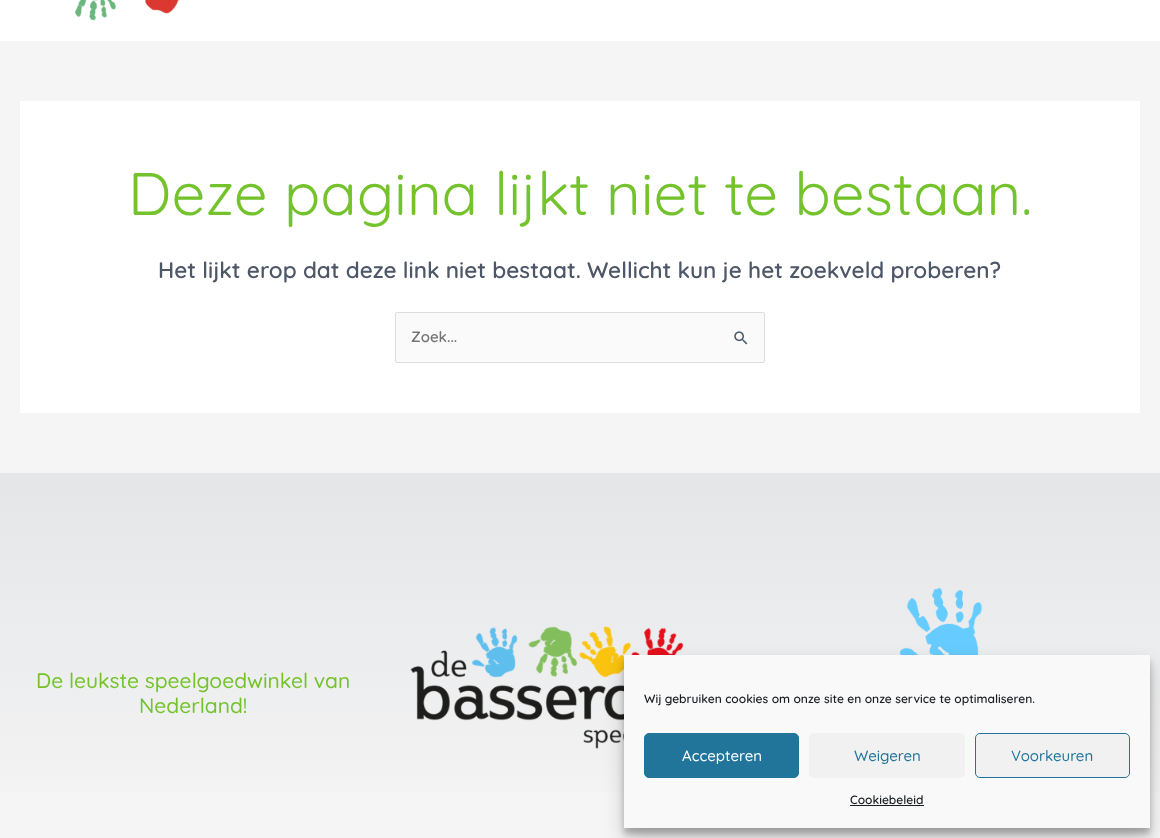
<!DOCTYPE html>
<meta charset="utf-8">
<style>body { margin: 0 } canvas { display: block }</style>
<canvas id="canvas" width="1160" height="838"></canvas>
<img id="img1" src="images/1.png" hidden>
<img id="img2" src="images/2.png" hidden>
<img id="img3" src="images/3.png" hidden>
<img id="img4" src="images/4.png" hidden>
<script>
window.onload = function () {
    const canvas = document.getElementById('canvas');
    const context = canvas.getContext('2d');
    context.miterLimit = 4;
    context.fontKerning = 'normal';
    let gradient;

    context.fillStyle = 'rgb(245, 245, 245)';
    context.fillRect(0, 0, 1160, 838);
    context.fillStyle = 'rgb(255, 255, 255)';
    context.fillRect(0, 0, 1160, 41);
    context.drawImage(document.getElementById('img1'), 74, 0, 106, 21);
    context.fillRect(20, 101, 1120, 312);
    context.fillStyle = 'rgb(250, 250, 250)';
    context.beginPath();
    context.roundRect(395.5, 312.5, 369, 50, 1.5);
    context.fill();
    context.strokeStyle = 'rgb(221, 221, 221)';
    context.stroke();
    context.drawImage(document.getElementById('img2'), 734, 331, 14, 14);
    gradient = context.createLinearGradient(580, 473, 580, 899);
    gradient.addColorStop(0, 'rgb(229, 230, 231)');
    gradient.addColorStop(1, 'rgb(247, 247, 248)');
    context.fillStyle = gradient;
    context.fillRect(0, 473, 1160, 319);
    context.drawImage(document.getElementById('img3'), 410, 626, 274, 123);
    context.drawImage(document.getElementById('img4'), 899, 587, 83, 68);
    context.fillStyle = 'rgba(0, 0, 0, 0.23)';
    context.filter = 'blur(3px)';
    context.beginPath();
    context.rect(624, 661, 526, 173);
    context.fill();
    context.filter = 'none';
    context.fillStyle = 'rgba(0, 0, 0, 0.19)';
    context.filter = 'blur(10px)';
    context.beginPath();
    context.rect(624, 665, 526, 173);
    context.fill();
    context.filter = 'none';
    context.fillStyle = 'rgb(249, 249, 249)';
    context.fillRect(624, 655, 526, 173);
    context.fillStyle = 'rgb(33, 117, 155)';
    context.beginPath();
    context.roundRect(644.5, 733.5, 154, 44, 4.5);
    context.fill();
    context.strokeStyle = 'rgb(33, 117, 155)';
    context.stroke();
    context.fillStyle = 'rgb(241, 241, 241)';
    context.beginPath();
    context.roundRect(809, 733, 156, 45, 5);
    context.fill();
    context.beginPath();
    context.roundRect(975.5, 733.5, 154, 44, 4.5);
    context.fill();
    context.stroke();
    context.fillStyle = 'rgb(25, 30, 35)';
    context.fillRect(850, 805, 74, 1);
    context.font = '60px Quicksand';
    context.fillStyle = 'rgb(117, 195, 44)';
    context.fillText('Deze pagina lijkt niet te bestaan.', 128, 215);
    context.font = '600 22.5px Quicksand';
    context.fillStyle = 'rgb(78, 87, 104)';
    context.fillText('Het lijkt erop dat deze link niet bestaat. Wellicht kun je het zoekveld proberen?', 158, 278);
    context.font = '600 15px Quicksand';
    context.fillStyle = 'rgb(117, 117, 117)';
    context.fillText('Zoek...', 411, 342);
    context.font = '500 21px Quicksand';
    context.fillStyle = 'rgb(117, 195, 44)';
    context.fillText('De leukste speelgoedwinkel van', 36, 688);
    context.fillText('Nederland!', 139, 713);
    context.font = '600 12px Quicksand';
    context.fillStyle = 'rgb(25, 30, 35)';
    context.fillText('Wij gebruiken cookies om onze site en onze service te optimaliseren.', 644, 703);
    context.font = '500 15px Quicksand';
    context.fillStyle = 'rgb(255, 255, 255)';
    context.fillText('Accepteren', 682, 761);
    context.fillStyle = 'rgb(33, 117, 155)';
    context.fillText('Weigeren', 854, 761);
    context.fillText('Voorkeuren', 1011, 761);
    context.font = '600 12px Quicksand';
    context.fillStyle = 'rgb(25, 30, 35)';
    context.fillText('Cookiebeleid', 850, 804);
};
</script>
